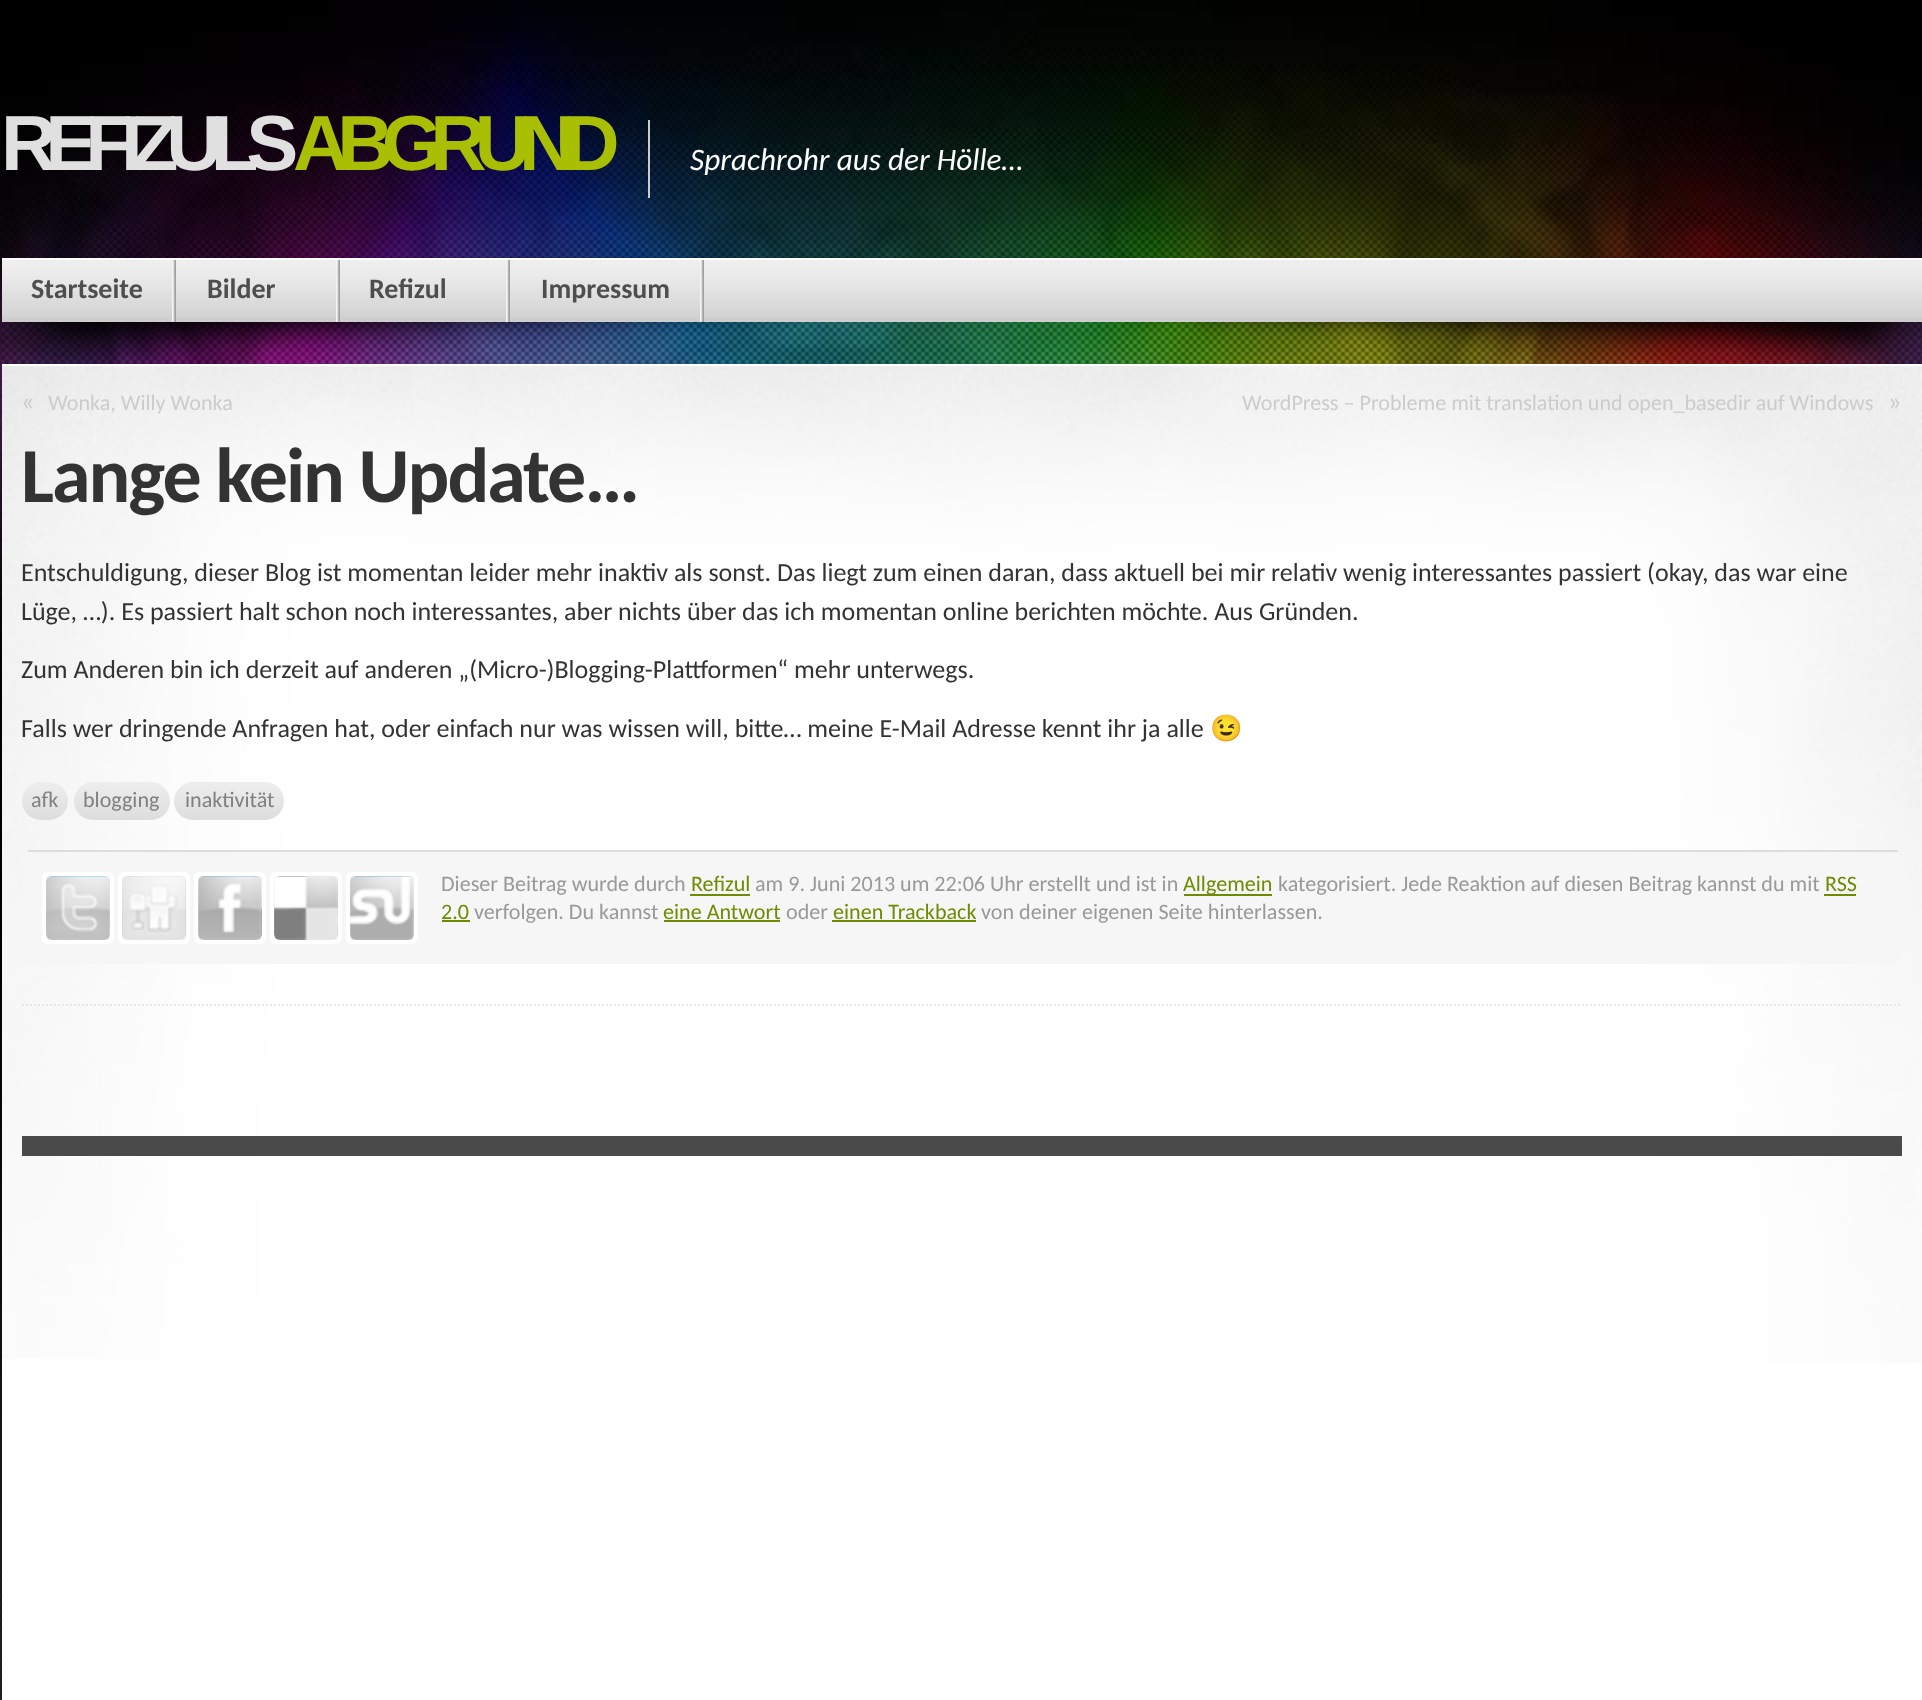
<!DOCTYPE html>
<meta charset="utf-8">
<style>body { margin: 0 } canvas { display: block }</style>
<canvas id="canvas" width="1922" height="1700"></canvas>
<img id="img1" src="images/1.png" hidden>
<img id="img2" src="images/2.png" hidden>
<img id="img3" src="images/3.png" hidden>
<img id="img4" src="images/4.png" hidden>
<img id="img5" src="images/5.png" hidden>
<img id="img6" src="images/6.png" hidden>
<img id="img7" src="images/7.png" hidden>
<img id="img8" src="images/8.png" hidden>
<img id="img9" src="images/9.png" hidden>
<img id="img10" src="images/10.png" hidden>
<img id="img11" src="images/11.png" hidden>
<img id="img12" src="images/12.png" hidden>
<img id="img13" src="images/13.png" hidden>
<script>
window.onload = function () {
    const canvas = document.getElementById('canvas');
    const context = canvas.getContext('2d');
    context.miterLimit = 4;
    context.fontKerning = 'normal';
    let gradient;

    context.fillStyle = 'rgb(0, 0, 0)';
    context.fillRect(0, 0, 1922, 1700);
    context.drawImage(document.getElementById('img1'), 0, 0, 1922, 771);
    context.drawImage(document.getElementById('img2'), 0, 979, 2, 721);
    context.fillStyle = 'rgb(204, 204, 204)';
    context.fillRect(648, 120, 2, 78);
    context.drawImage(document.getElementById('img3'), 10, 322, 791, 42);
    context.drawImage(document.getElementById('img4'), 1122, 322, 800, 42);
    context.fillStyle = 'rgb(206, 206, 206)';
    context.fillRect(2, 317, 1920, 5);
    context.drawImage(document.getElementById('img5'), 2, 260, 1920, 57);
    context.fillStyle = 'rgb(255, 255, 255)';
    context.fillRect(704, 258, 1218, 2);
    context.drawImage(document.getElementById('img6'), 172, 260, 4, 62);
    context.fillRect(2, 258, 702, 2);
    context.drawImage(document.getElementById('img6'), 336, 260, 4, 62);
    context.drawImage(document.getElementById('img6'), 506, 260, 4, 62);
    context.drawImage(document.getElementById('img6'), 700, 260, 4, 62);
    context.fillRect(2, 364, 1920, 1336);
    context.drawImage(document.getElementById('img7'), 2, 366, 1920, 997);
    context.drawImage(document.getElementById('img8'), 2, 366, 411, 993);
    context.beginPath();
    context.moveTo(22, 1005);
    context.lineTo(1902, 1005);
    context.strokeStyle = 'rgb(232, 232, 232)';
    context.lineWidth = 2;
    context.setLineDash([2, 2]);
    context.stroke();
    gradient = context.createLinearGradient(45, 782, 45, 820);
    gradient.addColorStop(0, 'rgb(238, 238, 238)');
    gradient.addColorStop(1, 'rgb(221, 221, 221)');
    context.fillStyle = gradient;
    context.beginPath();
    context.roundRect(22, 782, 46, 38, 19);
    context.fill();
    gradient = context.createLinearGradient(122, 782, 122, 820);
    gradient.addColorStop(0, 'rgb(238, 238, 238)');
    gradient.addColorStop(1, 'rgb(221, 221, 221)');
    context.fillStyle = gradient;
    context.beginPath();
    context.roundRect(74, 782, 96, 38, 19);
    context.fill();
    gradient = context.createLinearGradient(229, 782, 229, 820);
    gradient.addColorStop(0, 'rgb(238, 238, 238)');
    gradient.addColorStop(1, 'rgb(221, 221, 221)');
    context.fillStyle = gradient;
    context.beginPath();
    context.roundRect(174, 782, 110, 38, 19);
    context.fill();
    context.fillStyle = 'rgb(246, 246, 246)';
    context.beginPath();
    context.roundRect(22, 850, 1880, 114, 10);
    context.fill();
    context.fillStyle = 'rgb(221, 221, 221)';
    context.fillRect(28, 850, 1870, 2);
    context.beginPath();
    context.roundRect(44, 874, 68, 68, 4);
    context.strokeStyle = 'rgb(255, 255, 255)';
    context.lineWidth = 4;
    context.setLineDash([]);
    context.stroke();
    context.drawImage(document.getElementById('img9'), 46, 876, 64, 64);
    context.beginPath();
    context.roundRect(120, 874, 68, 68, 4);
    context.stroke();
    context.drawImage(document.getElementById('img10'), 122, 876, 64, 64);
    context.beginPath();
    context.roundRect(196, 874, 68, 68, 4);
    context.stroke();
    context.drawImage(document.getElementById('img11'), 198, 876, 64, 64);
    context.beginPath();
    context.roundRect(272, 874, 68, 68, 4);
    context.stroke();
    context.drawImage(document.getElementById('img12'), 274, 876, 64, 64);
    context.beginPath();
    context.roundRect(348, 874, 68, 68, 4);
    context.stroke();
    context.drawImage(document.getElementById('img13'), 350, 876, 64, 64);
    context.fillStyle = 'rgb(110, 140, 3)';
    context.fillRect(690, 894, 60, 2);
    context.fillRect(1184, 894, 88, 2);
    context.fillRect(1824, 894, 32, 2);
    context.fillRect(442, 920, 28, 2);
    context.fillRect(664, 920, 116, 2);
    context.fillRect(832, 920, 144, 2);
    context.fillStyle = 'rgb(74, 74, 74)';
    context.fillRect(22, 1136, 1880, 20);
    context.letterSpacing = '-12px';
    context.font = 'bold 78px Liberation Sans';
    context.fillStyle = 'rgb(224, 224, 224)';
    context.fillText('REFIZULS', 1, 170);
    context.fillStyle = 'rgb(169, 191, 4)';
    context.fillText('ABGRUND', 293, 170);
    context.letterSpacing = '0px';
    context.font = 'italic 31.25px Carlito';
    context.fillStyle = 'rgb(255, 255, 255)';
    context.fillText('Sprachrohr aus der Hölle…', 690, 170);
    context.font = 'bold 28px Carlito';
    context.fillStyle = 'rgb(78, 78, 78)';
    context.fillText('Startseite', 31, 298);
    context.fillText('Bilder', 207, 298);
    context.fillText('Refizul', 369, 298);
    context.fillText('Impressum', 541, 298);
    context.font = '26px Carlito';
    context.fillStyle = 'rgb(204, 204, 204)';
    context.fillText('«', 21, 410);
    context.font = '22.1px Carlito';
    context.fillText('Wonka, Willy Wonka', 48, 410);
    context.fillText('WordPress – Probleme mit translation und open_basedir auf Windows', 1242, 410);
    context.font = '26px Carlito';
    context.fillText('»', 1888, 410);
    context.letterSpacing = '-2px';
    context.font = 'bold 78px Carlito';
    context.fillStyle = 'rgb(51, 51, 51)';
    context.fillText('Lange kein Update…', 21, 502);
    context.letterSpacing = '0px';
    context.font = '26px Carlito';
    context.fillText('Entschuldigung, dieser Blog ist momentan leider mehr inaktiv als sonst. Das liegt zum einen daran, dass aktuell bei mir relativ wenig interessantes passiert (okay, das war eine', 21, 581);
    context.fillText('Lüge, …). Es passiert halt schon noch interessantes, aber nichts über das ich momentan online berichten möchte. Aus Gründen.', 21, 620);
    context.fillText('Zum Anderen bin ich derzeit auf anderen „(Micro-)Blogging-Plattformen“ mehr unterwegs.', 21, 678);
    context.fillText('Falls wer dringende Anfragen hat, oder einfach nur was wissen will, bitte… meine E-Mail Adresse kennt ihr ja alle', 21, 737);
    context.font = '26px Noto Color Emoji';
    context.fillText('😉', 1210, 737);
    context.font = '22.1px Carlito';
    context.fillStyle = 'rgb(128, 128, 128)';
    context.fillText('afk', 31, 807);
    context.fillText('blogging', 83, 807);
    context.fillText('inaktivität', 185, 807);
    context.fillStyle = 'rgb(153, 153, 153)';
    context.fillText('Dieser Beitrag wurde durch', 441, 891);
    context.fillStyle = 'rgb(110, 140, 3)';
    context.fillText('Refizul', 691, 891);
    context.fillStyle = 'rgb(153, 153, 153)';
    context.fillText('am 9. Juni 2013 um 22:06 Uhr erstellt und ist in', 755, 891);
    context.fillStyle = 'rgb(110, 140, 3)';
    context.fillText('Allgemein', 1183, 891);
    context.fillStyle = 'rgb(153, 153, 153)';
    context.fillText('kategorisiert. Jede Reaktion auf diesen Beitrag kannst du mit', 1278, 891);
    context.fillStyle = 'rgb(110, 140, 3)';
    context.fillText('RSS', 1825, 891);
    context.fillText('2.0', 441, 919);
    context.fillStyle = 'rgb(153, 153, 153)';
    context.fillText('verfolgen. Du kannst', 474, 919);
    context.fillStyle = 'rgb(110, 140, 3)';
    context.fillText('eine Antwort', 663, 919);
    context.fillStyle = 'rgb(153, 153, 153)';
    context.fillText('oder', 786, 919);
    context.fillStyle = 'rgb(110, 140, 3)';
    context.fillText('einen Trackback', 833, 919);
    context.fillStyle = 'rgb(153, 153, 153)';
    context.fillText('von deiner eigenen Seite hinterlassen.', 981, 919);
};
</script>
